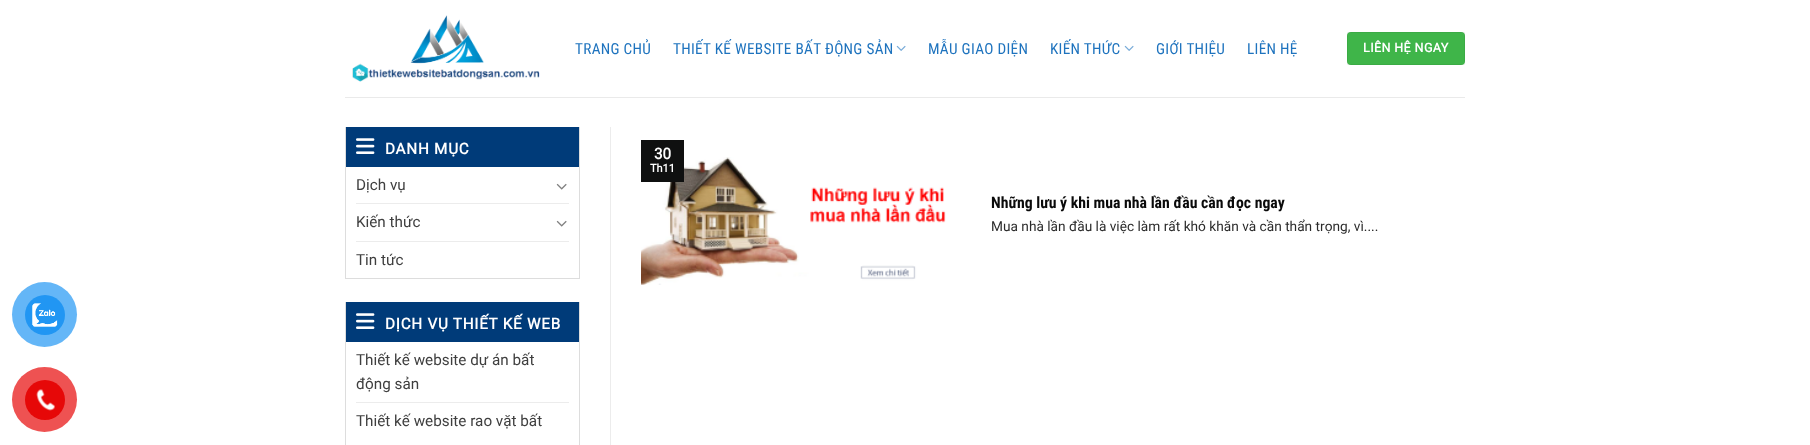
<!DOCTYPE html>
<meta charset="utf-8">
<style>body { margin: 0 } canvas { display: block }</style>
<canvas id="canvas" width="1810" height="445"></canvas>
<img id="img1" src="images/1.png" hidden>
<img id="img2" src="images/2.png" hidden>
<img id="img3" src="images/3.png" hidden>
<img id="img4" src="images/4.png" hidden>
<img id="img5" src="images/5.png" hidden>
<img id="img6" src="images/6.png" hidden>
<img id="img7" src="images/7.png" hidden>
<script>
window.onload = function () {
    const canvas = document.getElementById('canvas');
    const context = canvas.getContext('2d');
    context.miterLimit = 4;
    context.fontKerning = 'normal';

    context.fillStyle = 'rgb(255, 255, 255)';
    context.fillRect(0, 0, 1810, 445);
    context.fillStyle = 'rgb(100, 182, 247)';
    context.beginPath();
    context.arc(44.5, 314.5, 32.5, 0, 2 * Math.PI);
    context.fill();
    context.fillStyle = 'rgb(33, 150, 243)';
    context.beginPath();
    context.arc(45, 315, 20, 0, 2 * Math.PI);
    context.fill();
    context.drawImage(document.getElementById('img1'), 32, 303, 26, 24);
    context.fillStyle = 'rgb(238, 82, 82)';
    context.beginPath();
    context.arc(44.5, 399.5, 32.5, 0, 2 * Math.PI);
    context.fill();
    context.fillStyle = 'rgb(230, 8, 8)';
    context.beginPath();
    context.arc(45, 400, 20, 0, 2 * Math.PI);
    context.fill();
    context.drawImage(document.getElementById('img2'), 36, 389, 19, 22);
    context.drawImage(document.getElementById('img3'), 352, 15, 188, 67);
    context.drawImage(document.getElementById('img4'), 896, 45, 10, 6);
    context.drawImage(document.getElementById('img4'), 1124, 45, 10, 6);
    context.fillStyle = 'rgb(63, 181, 73)';
    context.beginPath();
    context.roundRect(1347, 32, 118, 33, 4);
    context.fill();
    context.strokeStyle = 'rgba(0, 0, 0, 0.05)';
    context.strokeRect(1347.5, 32.5, 117, 32);
    context.fillStyle = 'rgb(234, 234, 234)';
    context.fillRect(345, 97, 1120, 1);
    context.fillStyle = 'rgb(221, 221, 221)';
    context.fillRect(579, 127, 1, 152);
    context.fillRect(345, 278, 235, 1);
    context.fillRect(345, 127, 1, 152);
    context.fillStyle = 'rgb(0, 59, 121)';
    context.fillRect(346, 127, 233, 40);
    context.drawImage(document.getElementById('img5'), 356, 138, 19, 16);
    context.drawImage(document.getElementById('img6'), 556, 183, 11, 7);
    context.fillStyle = 'rgb(236, 236, 236)';
    context.fillRect(356, 203, 213, 1);
    context.drawImage(document.getElementById('img6'), 556, 220, 11, 7);
    context.fillRect(356, 241, 213, 1);
    context.fillStyle = 'rgb(221, 221, 221)';
    context.fillRect(579, 302, 1, 143);
    context.fillRect(345, 302, 1, 143);
    context.fillStyle = 'rgb(0, 59, 121)';
    context.fillRect(346, 302, 233, 40);
    context.drawImage(document.getElementById('img5'), 356, 313, 19, 16);
    context.fillStyle = 'rgb(236, 236, 236)';
    context.fillRect(356, 402, 213, 1);
    context.fillRect(610, 127, 1, 318);
    context.drawImage(document.getElementById('img7'), 641, 157, 305, 128);
    context.fillStyle = 'rgb(15, 16, 16)';
    context.fillRect(641, 140, 43, 42);
    context.letterSpacing = '0.3px';
    context.font = '15.25px Roboto Condensed';
    context.fillStyle = 'rgb(30, 115, 190)';
    context.fillText('TRANG CHỦ', 575, 54);
    context.fillText('THIẾT KẾ WEBSITE BẤT ĐỘNG SẢN', 673, 54);
    context.fillText('MẪU GIAO DIỆN', 928, 54);
    context.fillText('KIẾN THỨC', 1050, 54);
    context.fillText('GIỚI THIỆU', 1156, 54);
    context.fillText('LIÊN HỆ', 1247, 54);
    context.letterSpacing = '0.4px';
    context.font = 'bold 12.5px Roboto';
    context.fillStyle = 'rgb(255, 255, 255)';
    context.fillText('LIÊN HỆ NGAY', 1363, 52);
    context.letterSpacing = '0.75px';
    context.font = 'bold 15.25px Roboto';
    context.fillText('DANH MỤC', 385, 154);
    context.letterSpacing = '0px';
    context.font = '15.25px Roboto';
    context.fillStyle = 'rgb(63, 63, 63)';
    context.fillText('Dịch vụ', 356, 190);
    context.fillText('Kiến thức', 356, 227);
    context.fillText('Tin tức', 356, 265);
    context.letterSpacing = '0.75px';
    context.font = 'bold 15.25px Roboto';
    context.fillStyle = 'rgb(255, 255, 255)';
    context.fillText('DỊCH VỤ THIẾT KẾ WEB', 385, 329);
    context.letterSpacing = '0px';
    context.font = '15.25px Roboto';
    context.fillStyle = 'rgb(63, 63, 63)';
    context.fillText('Thiết kế website dự án bất', 356, 365);
    context.fillText('động sản', 356, 389);
    context.fillText('Thiết kế website rao vặt bất', 356, 426);
    context.font = 'bold 15.25px Roboto';
    context.fillStyle = 'rgb(255, 255, 255)';
    context.fillText('30', 654, 159);
    context.font = 'bold 11px Roboto';
    context.fillText('Th11', 650, 172);
    context.font = 'bold 15.75px Roboto Condensed';
    context.fillStyle = 'rgb(10, 10, 10)';
    context.fillText('Những lưu ý khi mua nhà lần đầu cần đọc ngay', 991, 208);
    context.font = '13.7px Roboto';
    context.fillStyle = 'rgb(43, 43, 43)';
    context.fillText('Mua nhà lần đầu là việc làm rất khó khăn và cần thẩn trọng, vì....', 991, 231);
};
</script>
